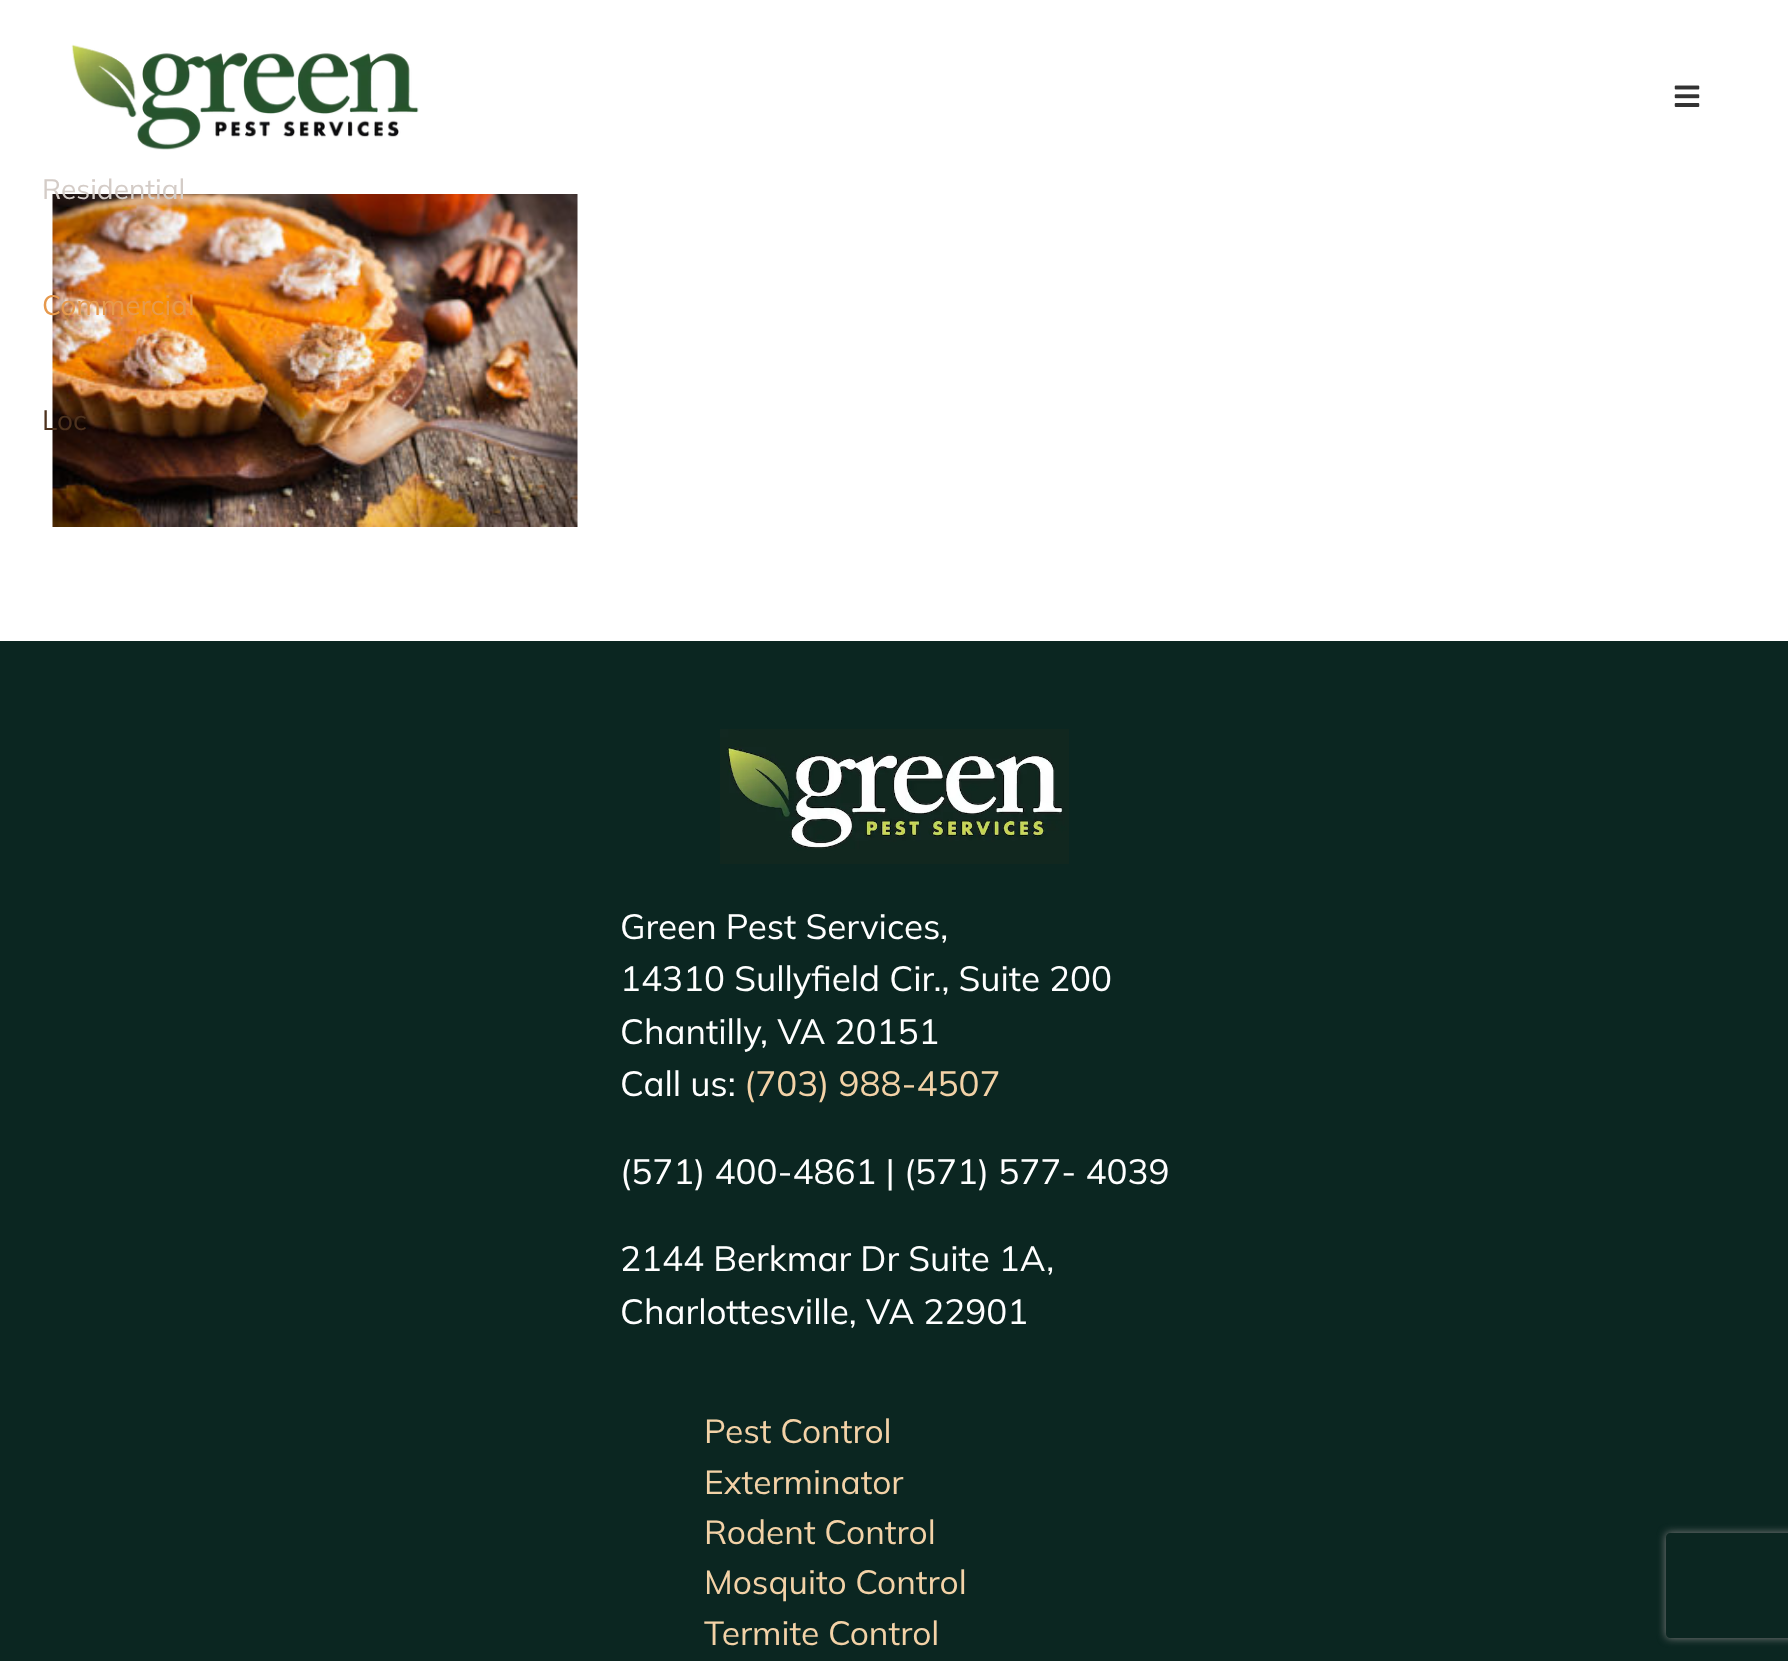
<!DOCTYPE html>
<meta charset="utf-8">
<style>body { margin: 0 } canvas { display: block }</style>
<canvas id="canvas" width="1788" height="1661"></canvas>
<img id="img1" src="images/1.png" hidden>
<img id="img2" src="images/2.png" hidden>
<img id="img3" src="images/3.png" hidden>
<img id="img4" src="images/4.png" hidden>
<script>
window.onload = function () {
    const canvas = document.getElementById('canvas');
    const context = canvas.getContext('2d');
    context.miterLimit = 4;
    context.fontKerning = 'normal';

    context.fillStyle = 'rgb(255, 255, 255)';
    context.fillRect(0, 0, 1788, 1661);
    context.drawImage(document.getElementById('img1'), 71, 44, 348, 106);
    context.drawImage(document.getElementById('img2'), 1674, 85, 26, 22);
    context.drawImage(document.getElementById('img3'), 52, 194, 526, 333);
    context.fillStyle = 'rgb(11, 38, 33)';
    context.fillRect(0, 641, 1788, 1020);
    context.drawImage(document.getElementById('img4'), 720, 729, 349, 135);
    context.save();
    context.beginPath();
    context.moveTo(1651, 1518);
    context.lineTo(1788, 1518);
    context.lineTo(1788, 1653);
    context.lineTo(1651, 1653);
    context.closePath();
    context.moveTo(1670, 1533);
    context.lineTo(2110, 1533);
    context.bezierCurveTo(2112, 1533, 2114, 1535, 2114, 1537);
    context.lineTo(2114, 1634);
    context.bezierCurveTo(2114, 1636, 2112, 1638, 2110, 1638);
    context.lineTo(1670, 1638);
    context.bezierCurveTo(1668, 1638, 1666, 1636, 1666, 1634);
    context.lineTo(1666, 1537);
    context.bezierCurveTo(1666, 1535, 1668, 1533, 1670, 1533);
    context.closePath();
    context.clip('evenodd');
    context.fillStyle = 'rgb(128, 128, 128)';
    context.filter = 'blur(4.5px)';
    context.beginPath();
    context.roundRect(1666, 1533, 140, 105, 4);
    context.fill();
    context.filter = 'none';
    context.restore();
    context.font = '28px Mulish';
    context.fillStyle = 'rgb(212, 204, 199)';
    context.fillText('Residential', 42, 199);
    context.fillStyle = 'rgb(230, 153, 77)';
    context.fillText('Commercial', 42, 315);
    context.fillStyle = 'rgb(77, 50, 30)';
    context.fillText('Loc', 42, 430);
    context.font = '35px Mulish';
    context.fillStyle = 'rgb(255, 255, 255)';
    context.fillText('Green Pest Services,', 620, 939);
    context.fillText('14310 Sullyfield Cir., Suite 200', 620, 991);
    context.fillText('Chantilly, VA 20151', 620, 1044);
    context.fillText('Call us:', 620, 1096);
    context.fillStyle = 'rgb(243, 210, 167)';
    context.fillText('(703) 988-4507', 744, 1096);
    context.fillStyle = 'rgb(255, 255, 255)';
    context.fillText('(571) 400-4861 | (571) 577- 4039', 620, 1184);
    context.fillText('2144 Berkmar Dr Suite 1A,', 620, 1271);
    context.fillText('Charlottesville, VA 22901', 620, 1324);
    context.font = '33.5px Mulish';
    context.fillStyle = 'rgb(243, 210, 167)';
    context.fillText('Pest Control', 704, 1443);
    context.fillText('Exterminator', 704, 1494);
    context.fillText('Rodent Control', 704, 1544);
    context.fillText('Mosquito Control', 704, 1594);
    context.fillText('Termite Control', 704, 1645);
};
</script>
